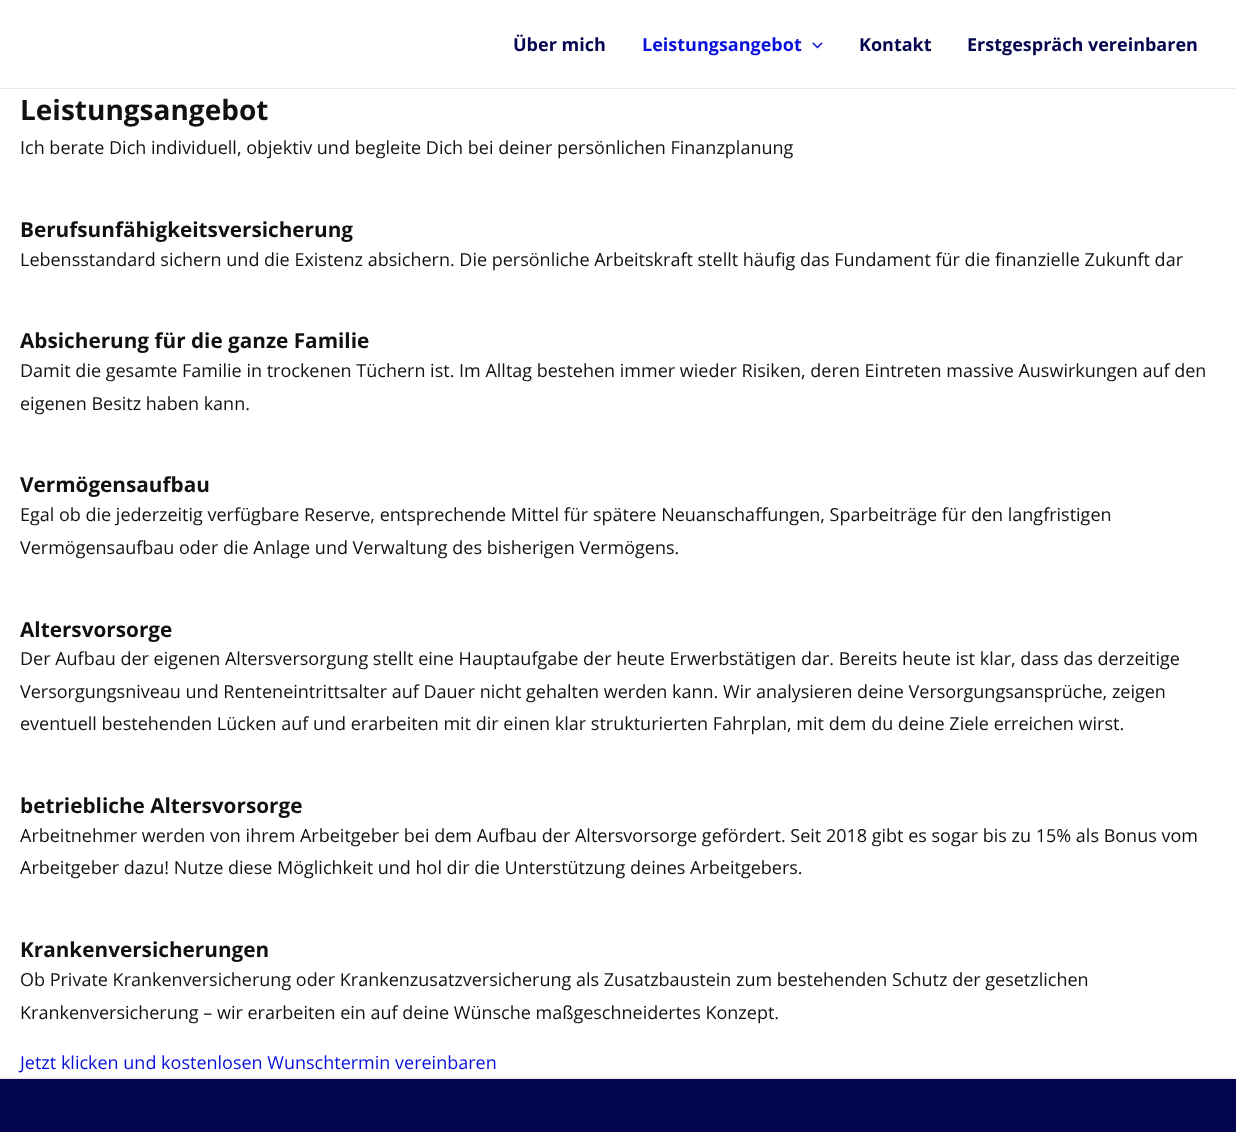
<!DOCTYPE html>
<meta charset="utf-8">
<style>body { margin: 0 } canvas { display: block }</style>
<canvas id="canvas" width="1236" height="1132"></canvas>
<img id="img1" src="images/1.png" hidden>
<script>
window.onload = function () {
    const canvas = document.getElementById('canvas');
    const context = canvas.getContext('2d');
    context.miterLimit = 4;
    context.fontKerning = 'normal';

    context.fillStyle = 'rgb(255, 255, 255)';
    context.fillRect(0, 0, 1236, 1132);
    context.fillStyle = 'rgb(234, 234, 234)';
    context.fillRect(0, 88, 1236, 1);
    context.drawImage(document.getElementById('img1'), 812, 42, 11, 7);
    context.fillStyle = 'rgb(3, 5, 78)';
    context.fillRect(0, 1079, 1236, 53);
    context.fillStyle = 'rgb(230, 230, 230)';
    context.fillRect(0, 1078, 1236, 1);
    context.font = 'bold 18px Open Sans';
    context.fillStyle = 'rgb(3, 5, 78)';
    context.fillText('Über mich', 513, 51);
    context.fillStyle = 'rgb(9, 16, 219)';
    context.fillText('Leistungsangebot', 642, 51);
    context.fillStyle = 'rgb(3, 5, 78)';
    context.fillText('Kontakt', 859, 51);
    context.fillText('Erstgespräch vereinbaren', 967, 51);
    context.font = 'bold 28px Open Sans';
    context.fillStyle = 'rgb(17, 17, 17)';
    context.fillText('Leistungsangebot', 20, 120);
    context.font = '18px Open Sans';
    context.fillText('Ich berate Dich individuell, objektiv und begleite Dich bei deiner persönlichen Finanzplanung', 20, 154);
    context.font = 'bold 20.75px Open Sans';
    context.fillText('Berufsunfähigkeitsversicherung', 20, 237);
    context.font = '18px Open Sans';
    context.fillText('Lebensstandard sichern und die Existenz absichern. Die persönliche Arbeitskraft stellt häufig das Fundament für die finanzielle Zukunft dar', 20, 266);
    context.font = 'bold 20.75px Open Sans';
    context.fillText('Absicherung für die ganze Familie', 20, 348);
    context.font = '18px Open Sans';
    context.fillText('Damit die gesamte Familie in trockenen Tüchern ist. Im Alltag bestehen immer wieder Risiken, deren Eintreten massive Auswirkungen auf den', 20, 377);
    context.fillText('eigenen Besitz haben kann.', 20, 410);
    context.font = 'bold 20.75px Open Sans';
    context.fillText('Vermögensaufbau', 20, 492);
    context.font = '18px Open Sans';
    context.fillText('Egal ob die jederzeitig verfügbare Reserve, entsprechende Mittel für spätere Neuanschaffungen, Sparbeiträge für den langfristigen', 20, 521);
    context.fillText('Vermögensaufbau oder die Anlage und Verwaltung des bisherigen Vermögens.', 20, 554);
    context.font = 'bold 20.75px Open Sans';
    context.fillText('Altersvorsorge', 20, 637);
    context.font = '18px Open Sans';
    context.fillText('Der Aufbau der eigenen Altersversorgung stellt eine Hauptaufgabe der heute Erwerbstätigen dar. Bereits heute ist klar, dass das derzeitige', 20, 665);
    context.fillText('Versorgungsniveau und Renteneintrittsalter auf Dauer nicht gehalten werden kann. Wir analysieren deine Versorgungsansprüche, zeigen', 20, 698);
    context.fillText('eventuell bestehenden Lücken auf und erarbeiten mit dir einen klar strukturierten Fahrplan, mit dem du deine Ziele erreichen wirst.', 20, 730);
    context.font = 'bold 20.75px Open Sans';
    context.fillText('betriebliche Altersvorsorge', 20, 813);
    context.font = '18px Open Sans';
    context.fillText('Arbeitnehmer werden von ihrem Arbeitgeber bei dem Aufbau der Altersvorsorge gefördert. Seit 2018 gibt es sogar bis zu 15% als Bonus vom', 20, 842);
    context.fillText('Arbeitgeber dazu! Nutze diese Möglichkeit und hol dir die Unterstützung deines Arbeitgebers.', 20, 874);
    context.font = 'bold 20.75px Open Sans';
    context.fillText('Krankenversicherungen', 20, 957);
    context.font = '18px Open Sans';
    context.fillText('Ob Private Krankenversicherung oder Krankenzusatzversicherung als Zusatzbaustein zum bestehenden Schutz der gesetzlichen', 20, 986);
    context.fillText('Krankenversicherung – wir erarbeiten ein auf deine Wünsche maßgeschneidertes Konzept.', 20, 1019);
    context.fillStyle = 'rgb(9, 16, 219)';
    context.fillText('Jetzt klicken und kostenlosen Wunschtermin vereinbaren', 20, 1069);
};
</script>
